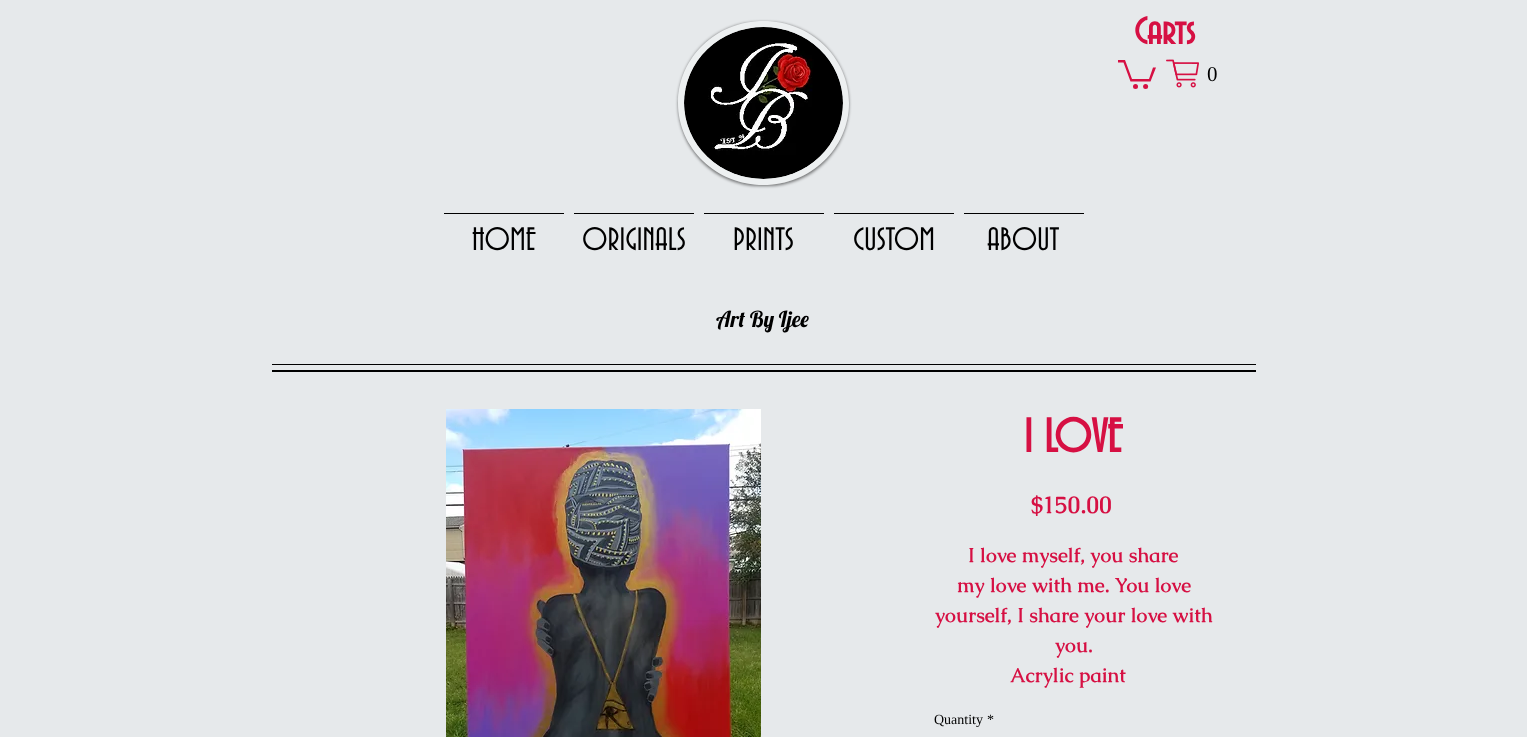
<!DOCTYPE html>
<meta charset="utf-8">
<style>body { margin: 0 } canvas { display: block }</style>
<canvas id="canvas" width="1527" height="737"></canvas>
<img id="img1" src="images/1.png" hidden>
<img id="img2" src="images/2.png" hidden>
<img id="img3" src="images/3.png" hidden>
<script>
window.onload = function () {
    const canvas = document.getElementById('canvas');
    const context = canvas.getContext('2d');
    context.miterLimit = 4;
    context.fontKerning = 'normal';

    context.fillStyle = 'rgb(230, 233, 235)';
    context.fillRect(0, 0, 1527, 737);
    context.save();
    context.beginPath();
    context.moveTo(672, 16);
    context.lineTo(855, 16);
    context.lineTo(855, 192);
    context.lineTo(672, 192);
    context.closePath();
    context.moveTo(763.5, 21);
    context.bezierCurveTo(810.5, 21, 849, 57.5, 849, 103);
    context.bezierCurveTo(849, 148.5, 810.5, 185, 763.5, 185);
    context.bezierCurveTo(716.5, 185, 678, 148.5, 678, 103);
    context.bezierCurveTo(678, 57.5, 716.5, 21, 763.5, 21);
    context.closePath();
    context.clip('evenodd');
    context.fillStyle = 'rgba(0, 0, 0, 0.5)';
    context.filter = 'blur(1.5px)';
    context.beginPath();
    context.roundRect(678, 22, 171, 164, 82);
    context.fill();
    context.filter = 'none';
    context.restore();
    context.fillStyle = 'rgba(255, 255, 255, 0.18)';
    context.beginPath();
    context.ellipse(763.5, 103, 85.5, 82, 0, 0, 2 * Math.PI);
    context.fill();
    context.beginPath();
    context.moveTo(763.5, 24);
    context.bezierCurveTo(809, 24, 846, 59.5, 846, 103);
    context.bezierCurveTo(846, 146.5, 809, 182, 763.5, 182);
    context.bezierCurveTo(718, 182, 681, 146.5, 681, 103);
    context.bezierCurveTo(681, 59.5, 718, 24, 763.5, 24);
    context.closePath();
    context.strokeStyle = 'rgba(255, 255, 255, 0.18)';
    context.lineWidth = 6;
    context.stroke();
    context.drawImage(document.getElementById('img1'), 684, 27, 159, 152);
    context.fillStyle = 'rgb(214, 16, 67)';
    context.beginPath();
    context.moveTo(1156, 67.5);
    context.lineTo(1150.5, 81.5);
    context.lineTo(1130.5, 81.5);
    context.lineTo(1123.5, 62.5);
    context.lineTo(1118, 62.5);
    context.lineTo(1118, 60);
    context.lineTo(1125, 60);
    context.lineTo(1132, 79);
    context.lineTo(1149, 79);
    context.lineTo(1153, 67.5);
    context.fill();
    context.beginPath();
    context.arc(1145.6, 86.4, 2.5, 0, 2 * Math.PI);
    context.fill();
    context.beginPath();
    context.arc(1135.5, 86.4, 2.5, 0, 2 * Math.PI);
    context.fill();
    context.drawImage(document.getElementById('img2'), 1166, 59, 33, 29);
    context.fillStyle = 'rgb(0, 0, 0)';
    context.fillRect(444, 213, 120, 1);
    context.fillRect(574, 213, 120, 1);
    context.fillRect(704, 213, 120, 1);
    context.fillRect(834, 213, 120, 1);
    context.fillRect(964, 213, 120, 1);
    context.fillRect(272, 364, 984, 1);
    context.fillRect(272, 370, 984, 2);
    context.drawImage(document.getElementById('img3'), 446, 409, 315, 328);
    context.font = 'bold 40px "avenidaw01"';
    context.fillStyle = 'rgb(214, 16, 67)';
    context.fillText('Carts', 1134, 44);
    context.font = '21px Liberation Serif';
    context.fillStyle = 'rgb(0, 0, 0)';
    context.fillText('0', 1207, 81);
    context.font = '34px "avenidaw01"';
    context.fillText('HOME', 472, 250);
    context.fillText('ORIGINALS', 582, 250);
    context.fillText('PRINTS', 733, 250);
    context.fillText('CUSTOM', 853, 250);
    context.fillText('ABOUT', 987, 250);
    context.font = '22px Lobster';
    context.fillText('Art By Ijee', 716, 327);
    context.font = 'bold 50px "avenidaw01"';
    context.fillStyle = 'rgb(214, 16, 67)';
    context.fillText('I LOVE', 1024, 452);
    context.font = 'bold 24px Caudex';
    context.fillText('$150.00', 1031, 513);
    context.font = 'bold 20px Caudex';
    context.fillText('I love myself, you share', 968, 562);
    context.fillText('my love with me. You love', 957, 592);
    context.fillText('yourself, I share your love with', 935, 622);
    context.fillText('you.', 1055, 652);
    context.fillText('Acrylic paint', 1010, 682);
    context.font = '14px Liberation Serif';
    context.fillStyle = 'rgb(0, 0, 0)';
    context.fillText('Quantity', 934, 724);
    context.fillText('*', 987, 724);
};
</script>
